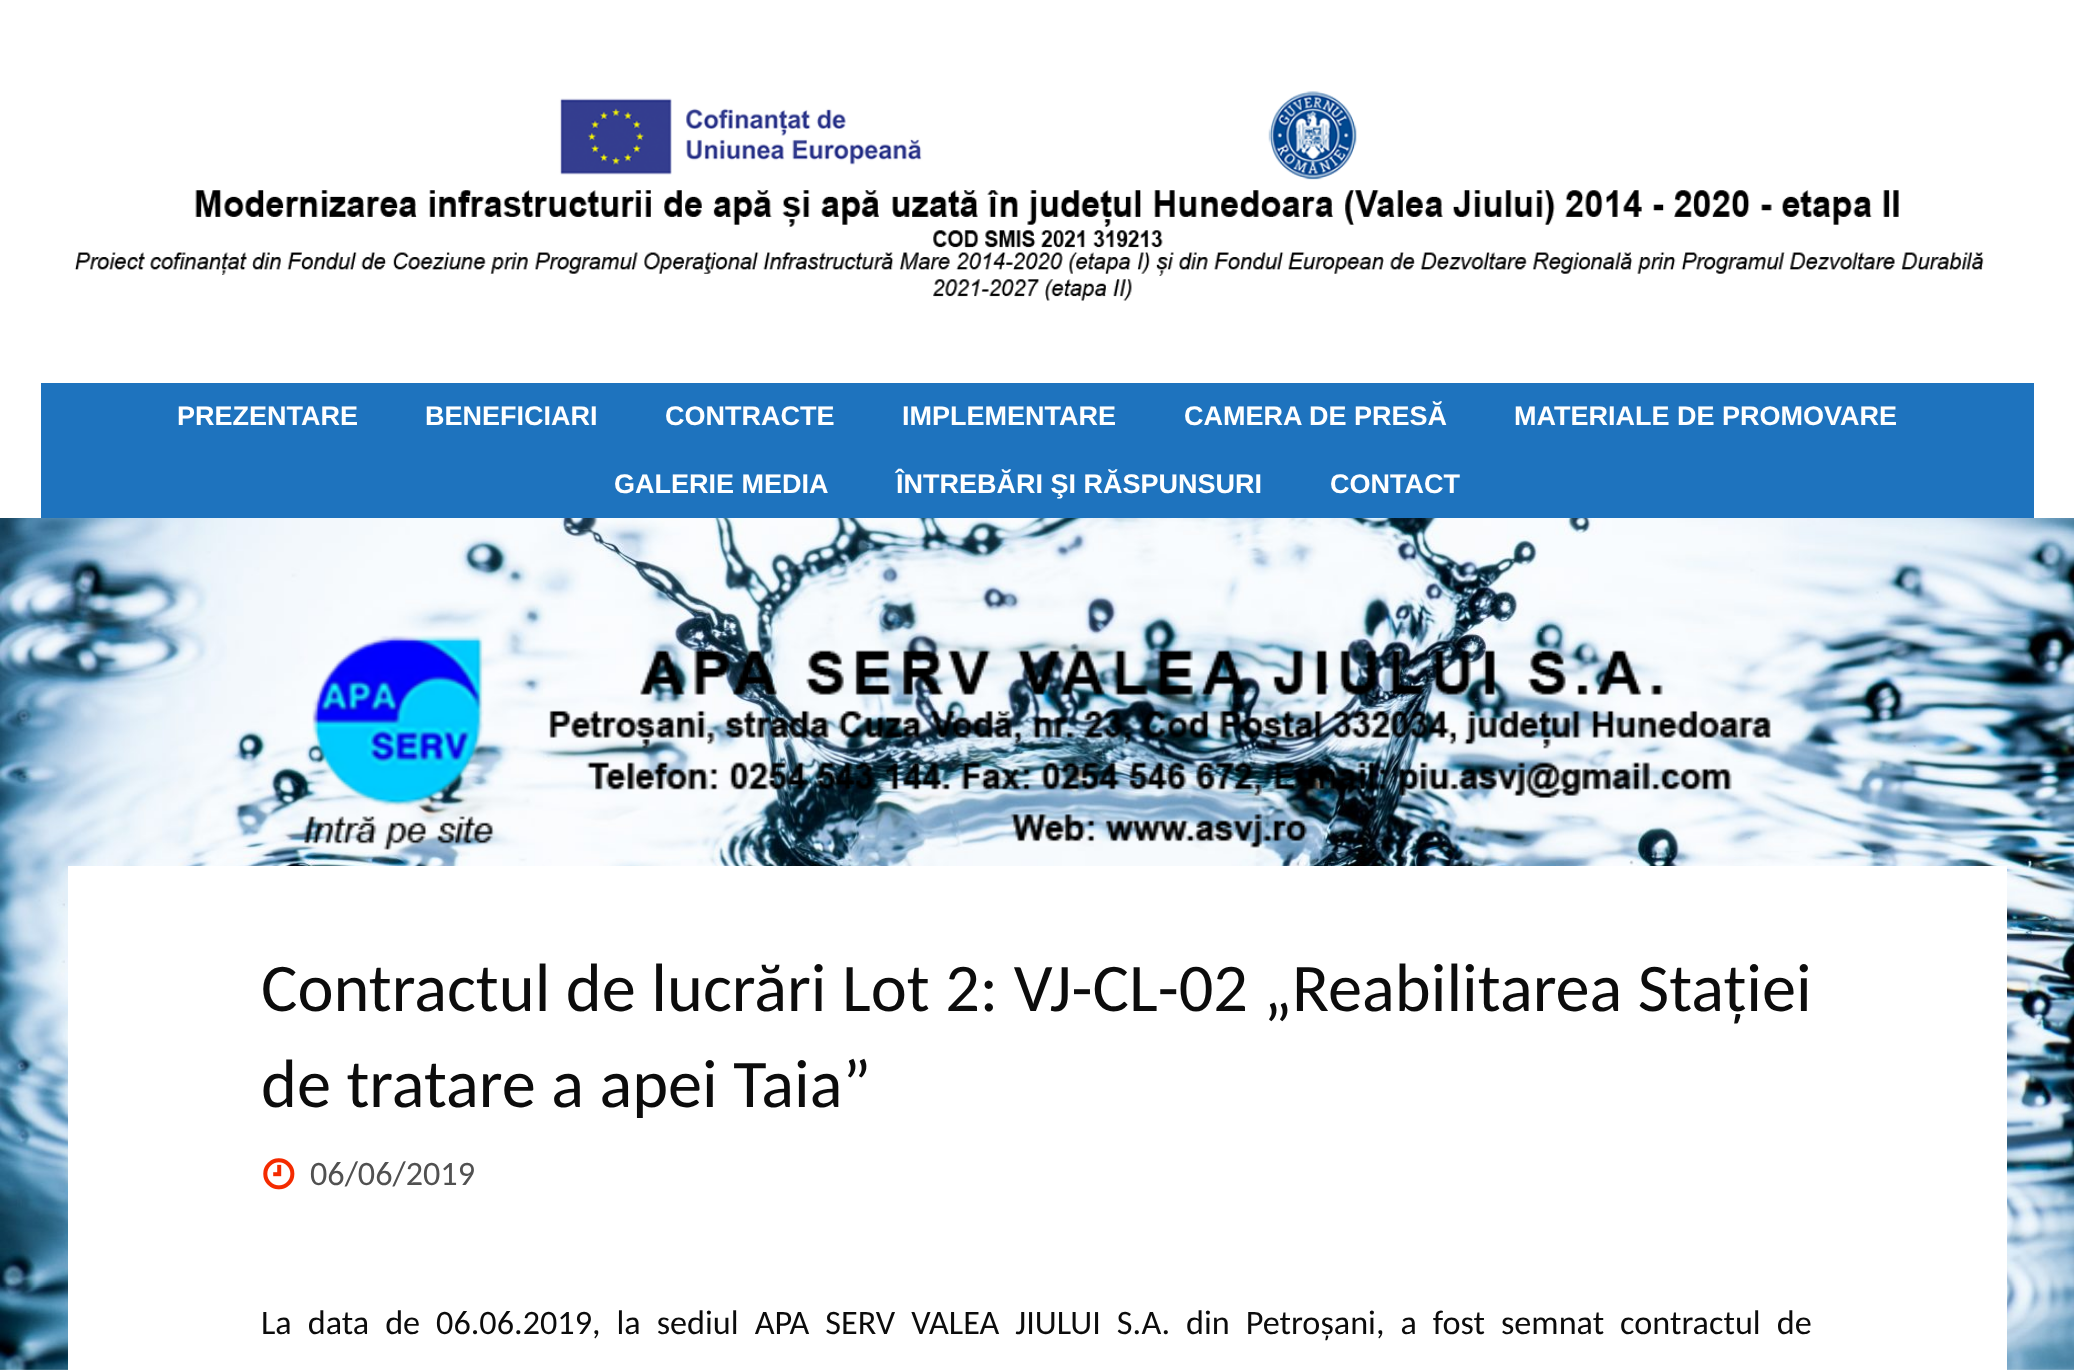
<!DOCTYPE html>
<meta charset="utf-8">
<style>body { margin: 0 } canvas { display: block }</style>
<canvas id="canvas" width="2074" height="1370"></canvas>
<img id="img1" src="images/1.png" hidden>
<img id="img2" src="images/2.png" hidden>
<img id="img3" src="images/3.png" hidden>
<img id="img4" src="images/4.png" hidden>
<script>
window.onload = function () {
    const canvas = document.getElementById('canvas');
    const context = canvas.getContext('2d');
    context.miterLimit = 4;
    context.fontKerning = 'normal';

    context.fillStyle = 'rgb(255, 255, 255)';
    context.fillRect(0, 0, 2074, 1370);
    context.drawImage(document.getElementById('img1'), 0, 518, 2074, 852);
    context.drawImage(document.getElementById('img2'), 74, 91, 1910, 210);
    context.fillStyle = 'rgb(30, 115, 190)';
    context.fillRect(41, 383, 1993, 135);
    context.drawImage(document.getElementById('img3'), 304, 635, 1468, 215);
    context.fillStyle = 'rgb(255, 255, 255)';
    context.fillRect(68, 866, 1939, 504);
    context.drawImage(document.getElementById('img4'), 263, 1158, 32, 32);
    context.font = 'bold 27px Liberation Sans';
    context.fillText('PREZENTARE', 177, 425);
    context.fillText('BENEFICIARI', 425, 425);
    context.fillText('CONTRACTE', 665, 425);
    context.fillText('IMPLEMENTARE', 902, 425);
    context.fillText('CAMERA DE PRESĂ', 1184, 425);
    context.fillText('MATERIALE DE PROMOVARE', 1514, 425);
    context.fillText('GALERIE MEDIA', 614, 493);
    context.fillText('ÎNTREBĂRI ŞI RĂSPUNSURI', 896, 493);
    context.fillText('CONTACT', 1330, 493);
    context.font = '68.4px Carlito';
    context.fillStyle = 'rgb(12, 12, 12)';
    context.fillText('Contractul de lucrări Lot 2: VJ-CL-02 „Reabilitarea Stației', 261, 1011);
    context.fillText('de tratare a apei Taia”', 261, 1107);
    context.font = '34.2px Carlito';
    context.fillStyle = 'rgb(81, 81, 81)';
    context.fillText('06/06/2019', 310, 1185);
    context.wordSpacing = '8.25px';
    context.fillStyle = 'rgb(12, 12, 12)';
    context.fillText('La data de 06.06.2019, la sediul APA SERV VALEA JIULUI S.A. din Petroșani, a fost semnat contractul de', 261, 1334);
};
</script>
